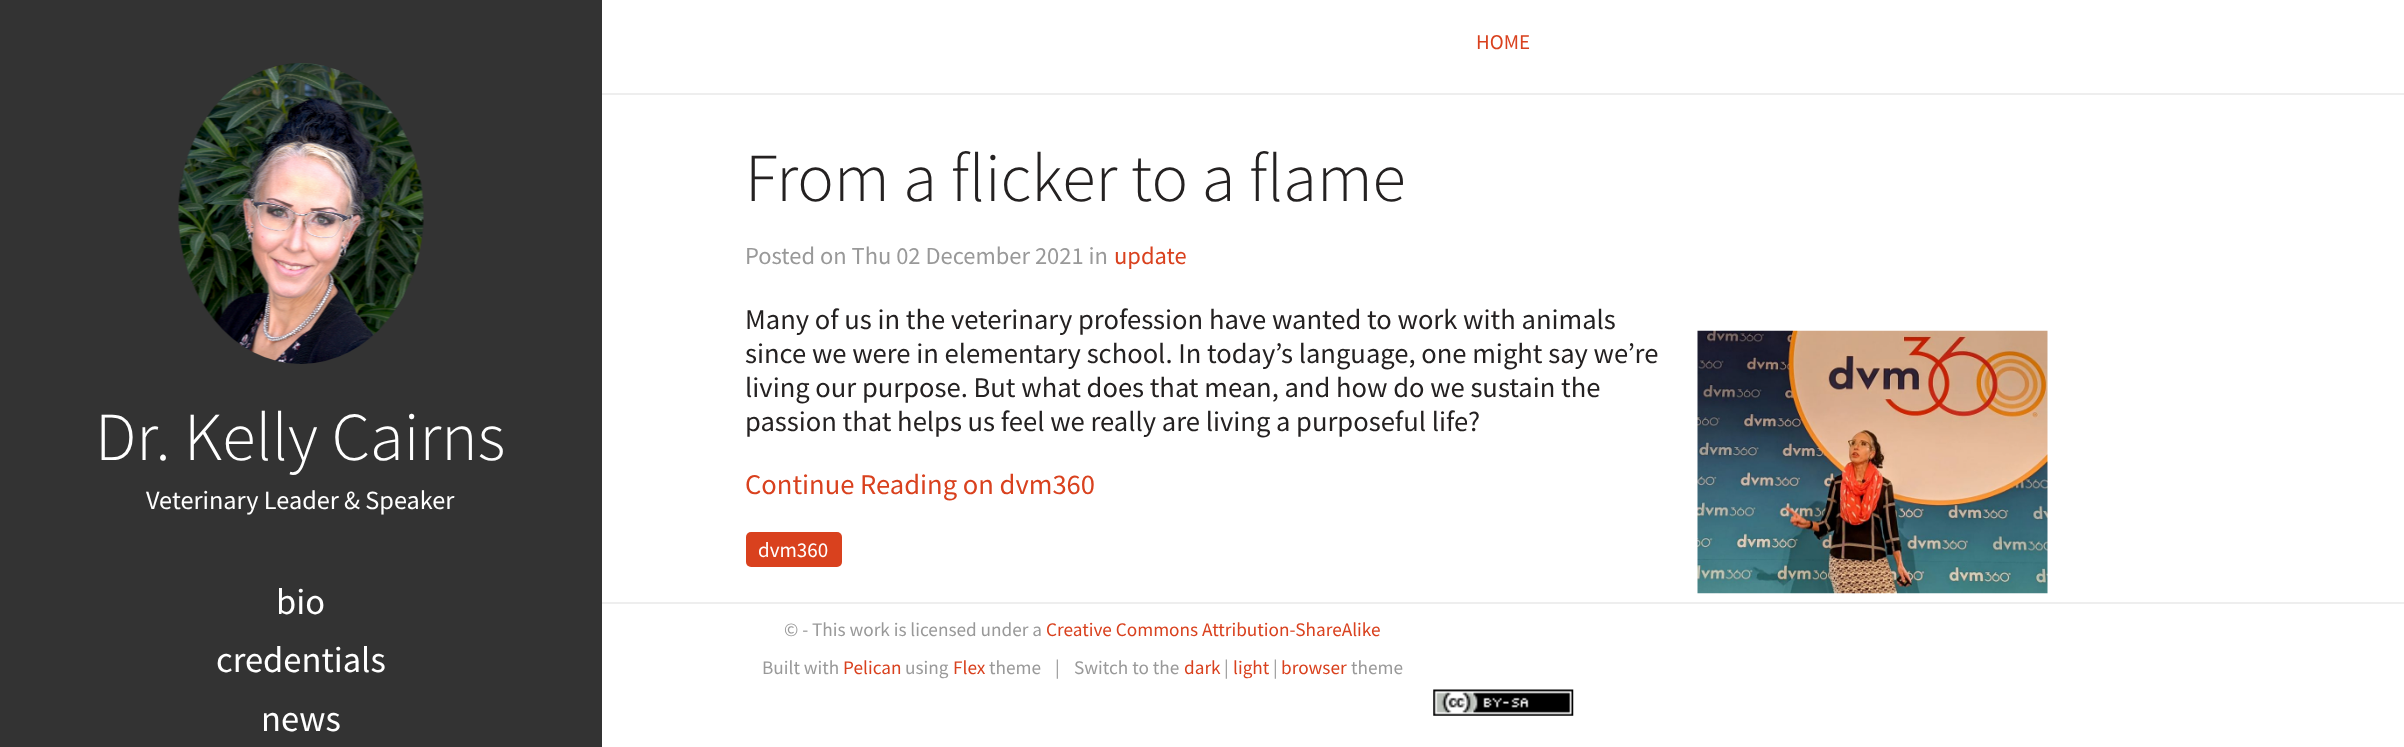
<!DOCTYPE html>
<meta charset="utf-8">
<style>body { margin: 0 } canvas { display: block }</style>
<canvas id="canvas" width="2404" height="747"></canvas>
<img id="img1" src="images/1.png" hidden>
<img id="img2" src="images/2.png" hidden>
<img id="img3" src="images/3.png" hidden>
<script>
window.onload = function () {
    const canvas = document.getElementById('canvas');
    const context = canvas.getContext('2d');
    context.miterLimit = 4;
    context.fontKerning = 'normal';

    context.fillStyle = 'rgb(255, 255, 255)';
    context.fillRect(0, 0, 2404, 747);
    context.fillStyle = 'rgb(51, 51, 51)';
    context.fillRect(0, 0, 602, 747);
    context.drawImage(document.getElementById('img1'), 178, 63, 246, 301);
    context.fillStyle = 'rgb(238, 238, 238)';
    context.fillRect(602, 93, 1802, 2);
    context.drawImage(document.getElementById('img2'), 1697, 330, 351, 264);
    context.fillStyle = 'rgb(217, 65, 30)';
    context.beginPath();
    context.roundRect(746, 532, 96, 35, 5);
    context.fill();
    context.fillStyle = 'rgb(238, 238, 238)';
    context.fillRect(602, 602, 1802, 2);
    context.drawImage(document.getElementById('img3'), 1433, 689, 141, 27);
    context.font = '300 68.5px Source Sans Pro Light';
    context.fillStyle = 'rgb(255, 255, 255)';
    context.fillText('Dr. Kelly Cairns', 95, 460);
    context.font = '26.25px Source Sans Pro';
    context.fillText('Veterinary Leader & Speaker', 146, 509);
    context.font = '36.5px Source Sans Pro';
    context.fillText('bio', 276, 614);
    context.fillText('credentials', 216, 672);
    context.fillText('news', 261, 731);
    context.font = '21px Source Sans Pro';
    context.fillStyle = 'rgb(217, 65, 30)';
    context.fillText('HOME', 1476, 49);
    context.font = '300 68.5px Source Sans Pro Light';
    context.fillStyle = 'rgb(36, 33, 33)';
    context.fillText('From a flicker to a flame', 745, 201);
    context.font = '24.5px Source Sans Pro';
    context.fillStyle = 'rgb(153, 153, 153)';
    context.fillText('Posted on Thu 02 December 2021 in', 745, 264);
    context.fillStyle = 'rgb(217, 65, 30)';
    context.fillText('update', 1114, 264);
    context.font = '28.55px Source Sans Pro';
    context.fillStyle = 'rgb(36, 33, 33)';
    context.fillText('Many of us in the veterinary profession have wanted to work with animals', 745, 329);
    context.fillText('since we were in elementary school. In today’s language, one might say we’re', 745, 363);
    context.fillText('living our purpose. But what does that mean, and how do we sustain the', 745, 397);
    context.fillText('passion that helps us feel we really are living a purposeful life?', 745, 431);
    context.fillStyle = 'rgb(217, 65, 30)';
    context.fillText('Continue Reading on dvm360', 745, 494);
    context.font = '21px Source Sans Pro';
    context.fillStyle = 'rgb(255, 255, 255)';
    context.fillText('dvm360', 758, 557);
    context.font = '19.25px Source Sans Pro';
    context.fillStyle = 'rgb(153, 153, 153)';
    context.fillText('© - This work is licensed under a', 784, 636);
    context.fillStyle = 'rgb(217, 65, 30)';
    context.fillText('Creative Commons Attribution-ShareAlike', 1046, 636);
    context.fillStyle = 'rgb(153, 153, 153)';
    context.fillText('Built with', 762, 674);
    context.fillStyle = 'rgb(217, 65, 30)';
    context.fillText('Pelican', 843, 674);
    context.fillStyle = 'rgb(153, 153, 153)';
    context.fillText('using', 905, 674);
    context.fillStyle = 'rgb(217, 65, 30)';
    context.fillText('Flex', 953, 674);
    context.fillStyle = 'rgb(153, 153, 153)';
    context.fillText('theme', 989, 674);
    context.fillText('|', 1055, 674);
    context.fillText('Switch to the', 1074, 674);
    context.fillStyle = 'rgb(217, 65, 30)';
    context.fillText('dark', 1184, 674);
    context.fillStyle = 'rgb(153, 153, 153)';
    context.fillText('|', 1224, 674);
    context.fillStyle = 'rgb(217, 65, 30)';
    context.fillText('light', 1233, 674);
    context.fillStyle = 'rgb(153, 153, 153)';
    context.fillText('|', 1273, 674);
    context.fillStyle = 'rgb(217, 65, 30)';
    context.fillText('browser', 1281, 674);
    context.fillStyle = 'rgb(153, 153, 153)';
    context.fillText('theme', 1351, 674);
};
</script>
